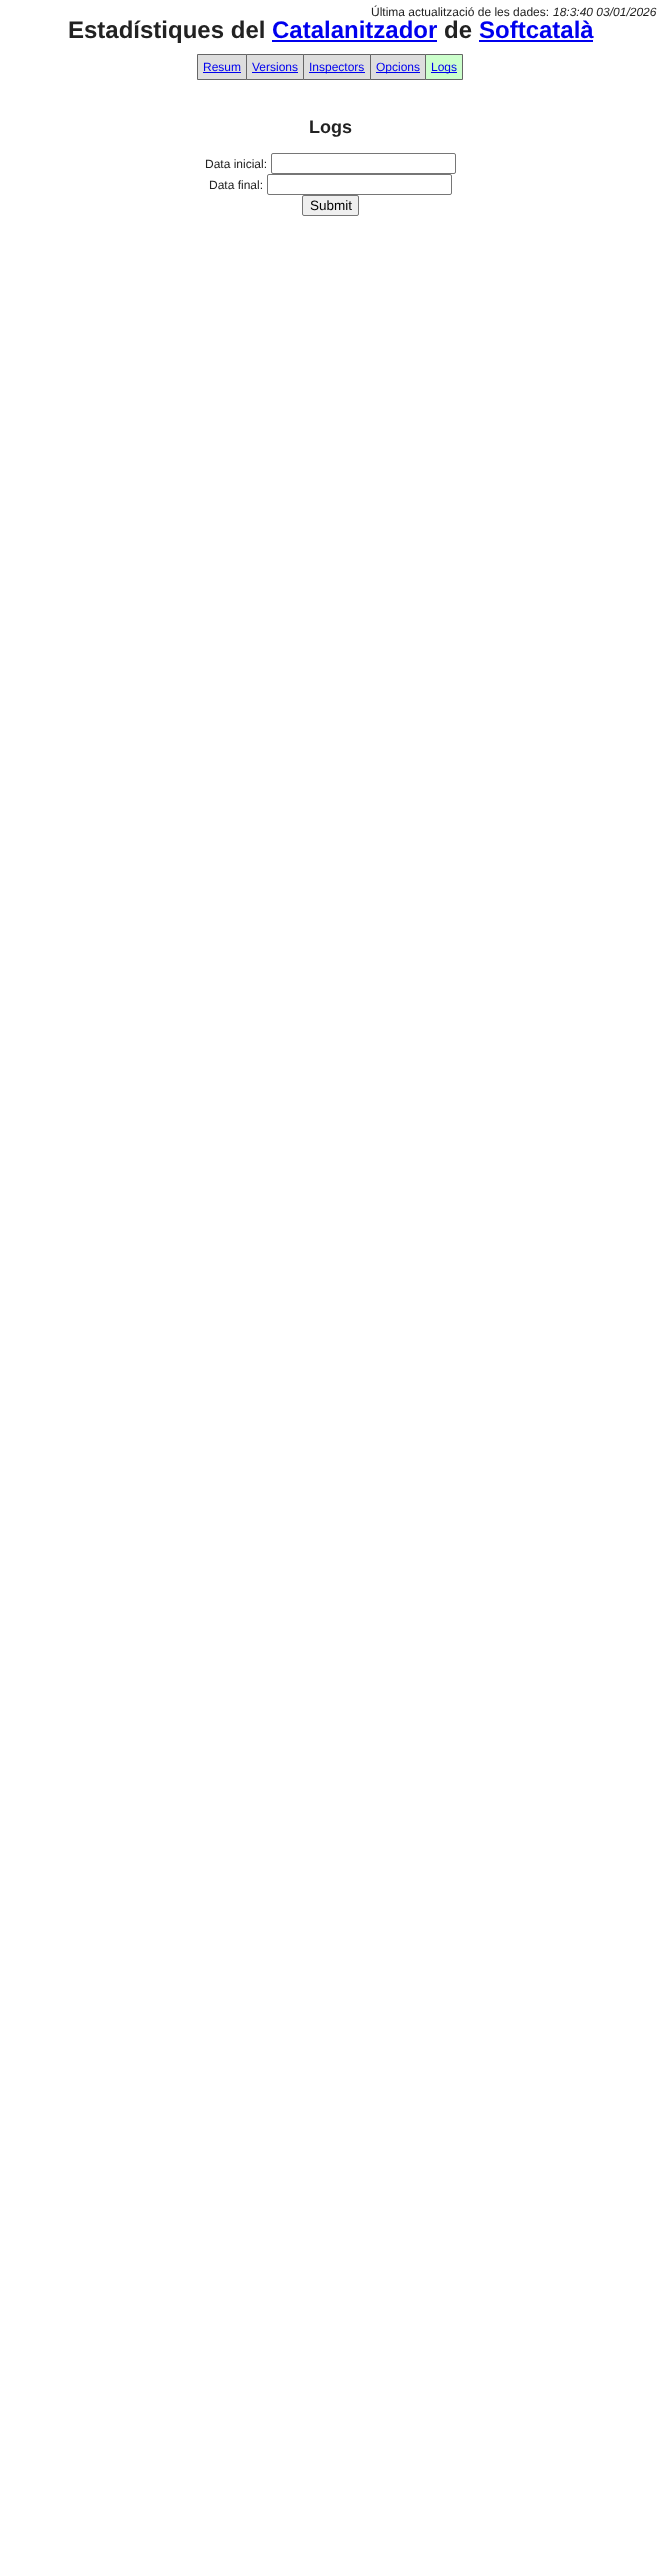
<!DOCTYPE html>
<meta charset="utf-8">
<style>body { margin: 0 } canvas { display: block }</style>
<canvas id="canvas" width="661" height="2555"></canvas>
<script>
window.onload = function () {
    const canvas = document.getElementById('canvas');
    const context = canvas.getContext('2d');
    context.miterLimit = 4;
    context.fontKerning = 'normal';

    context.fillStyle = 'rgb(255, 255, 255)';
    context.fillRect(0, 0, 661, 2555);
    context.fillStyle = 'rgb(0, 0, 238)';
    context.fillRect(272, 40, 165, 2);
    context.fillRect(479, 40, 114, 2);
    context.fillStyle = 'rgb(222, 222, 222)';
    context.beginPath();
    context.rect(197.5, 54.5, 49, 25);
    context.fill();
    context.strokeStyle = 'rgb(102, 102, 102)';
    context.stroke();
    context.fillStyle = 'rgb(0, 0, 238)';
    context.fillRect(203, 72, 38, 1);
    context.fillStyle = 'rgb(222, 222, 222)';
    context.beginPath();
    context.rect(246.5, 54.5, 57, 25);
    context.fill();
    context.stroke();
    context.fillStyle = 'rgb(0, 0, 238)';
    context.fillRect(252, 72, 46, 1);
    context.fillStyle = 'rgb(222, 222, 222)';
    context.beginPath();
    context.rect(303.5, 54.5, 67, 25);
    context.fill();
    context.stroke();
    context.fillStyle = 'rgb(0, 0, 238)';
    context.fillRect(309, 72, 56, 1);
    context.fillStyle = 'rgb(222, 222, 222)';
    context.beginPath();
    context.rect(370.5, 54.5, 55, 25);
    context.fill();
    context.stroke();
    context.fillStyle = 'rgb(0, 0, 238)';
    context.fillRect(376, 72, 44, 1);
    context.fillStyle = 'rgb(204, 255, 204)';
    context.beginPath();
    context.rect(425.5, 54.5, 37, 25);
    context.fill();
    context.stroke();
    context.fillStyle = 'rgb(0, 0, 238)';
    context.fillRect(431, 72, 26, 1);
    context.beginPath();
    context.roundRect(271.5, 153.5, 184, 20, 1.5);
    context.strokeStyle = 'rgb(118, 118, 118)';
    context.stroke();
    context.beginPath();
    context.roundRect(267.5, 174.5, 184, 20, 1.5);
    context.stroke();
    context.fillStyle = 'rgb(239, 239, 239)';
    context.beginPath();
    context.roundRect(302.5, 195.5, 56, 20, 1.5);
    context.fill();
    context.stroke();
    context.font = '12px Liberation Sans';
    context.fillStyle = 'rgb(34, 34, 34)';
    context.fillText('Última actualització de les dades:', 371, 16);
    context.font = 'italic 12px Liberation Sans';
    context.fillText('18:3:40 03/01/2026', 553, 16);
    context.font = 'bold 24px Liberation Sans';
    context.fillText('Estadístiques del', 68, 38);
    context.fillStyle = 'rgb(0, 0, 238)';
    context.fillText('Catalanitzador', 272, 38);
    context.fillStyle = 'rgb(34, 34, 34)';
    context.fillText('de', 444, 38);
    context.fillStyle = 'rgb(0, 0, 238)';
    context.fillText('Softcatalà', 479, 38);
    context.font = '12px Liberation Sans';
    context.fillText('Resum', 203, 71);
    context.fillText('Versions', 252, 71);
    context.fillText('Inspectors', 309, 71);
    context.fillText('Opcions', 376, 71);
    context.fillText('Logs', 431, 71);
    context.font = 'bold 18px Liberation Sans';
    context.fillStyle = 'rgb(34, 34, 34)';
    context.fillText('Logs', 309, 133);
    context.font = '12px Liberation Sans';
    context.fillText('Data inicial:', 205, 168);
    context.fillText('Data final:', 209, 189);
    context.font = '13.5px Liberation Sans';
    context.fillStyle = 'rgb(0, 0, 0)';
    context.fillText('Submit', 310, 210);
};
</script>
